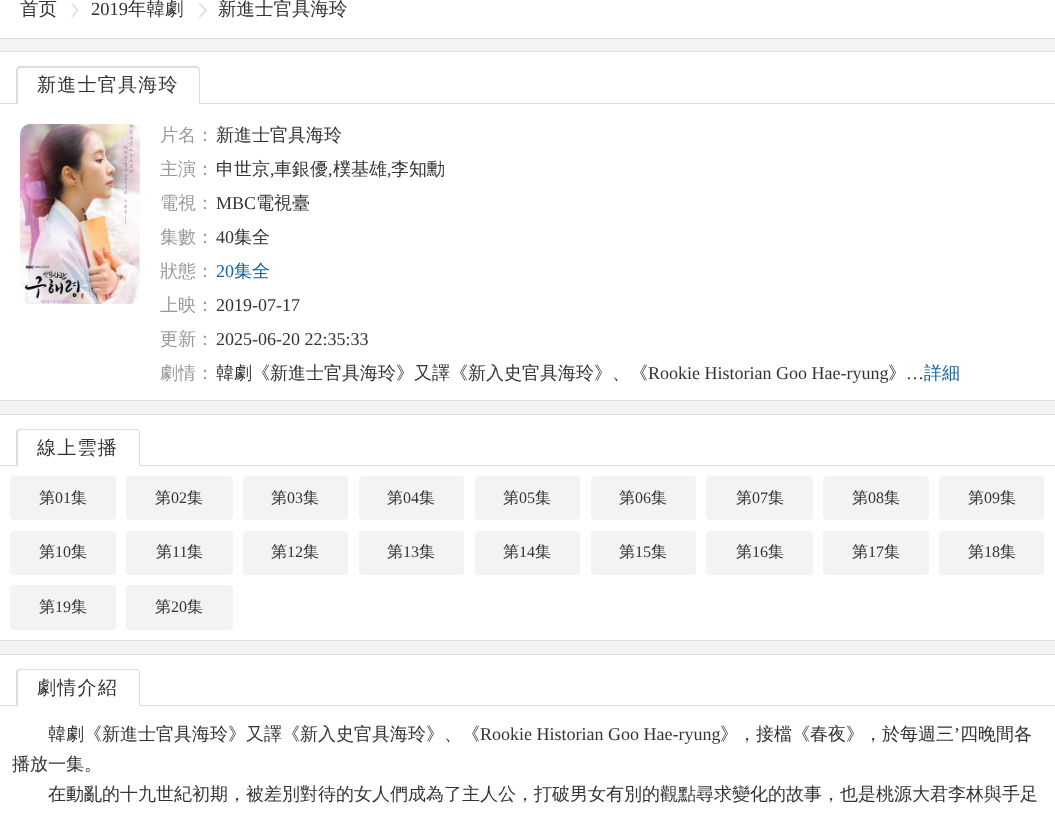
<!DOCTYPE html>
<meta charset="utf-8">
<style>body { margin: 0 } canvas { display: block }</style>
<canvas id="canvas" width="1055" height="813"></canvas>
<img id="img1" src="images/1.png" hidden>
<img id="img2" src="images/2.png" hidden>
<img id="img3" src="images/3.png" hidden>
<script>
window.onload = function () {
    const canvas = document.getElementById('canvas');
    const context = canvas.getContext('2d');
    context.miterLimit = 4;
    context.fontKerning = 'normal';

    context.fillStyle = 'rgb(243, 243, 243)';
    context.fillRect(0, 0, 1055, 813);
    context.fillStyle = 'rgb(255, 255, 255)';
    context.fillRect(0, 0, 1055, 38);
    context.fillStyle = 'rgb(221, 221, 221)';
    context.fillRect(0, 38, 1055, 1);
    context.drawImage(document.getElementById('img1'), 71, 2, 8, 16);
    context.drawImage(document.getElementById('img2'), 198, 2, 10, 16);
    context.fillStyle = 'rgb(255, 255, 255)';
    context.fillRect(0, 52, 1055, 348);
    context.fillStyle = 'rgb(221, 221, 221)';
    context.fillRect(0, 51, 1055, 1);
    context.fillRect(0, 400, 1055, 1);
    context.fillRect(0, 103, 1055, 1);
    context.fillStyle = 'rgb(255, 255, 255)';
    context.beginPath();
    context.roundRect(16, 66, 184, 38, [4, 4, 0, 0]);
    context.fill();
    context.fillStyle = 'rgb(221, 221, 221)';
    context.beginPath();
    context.moveTo(20, 66);
    context.lineTo(196, 66);
    context.bezierCurveTo(198, 66, 200, 68, 200, 70);
    context.lineTo(200, 104);
    context.lineTo(16, 104);
    context.lineTo(16, 70);
    context.bezierCurveTo(16, 68, 18, 66, 20, 66);
    context.closePath();
    context.moveTo(20, 68);
    context.lineTo(196, 68);
    context.bezierCurveTo(198, 68, 199, 69, 199, 70);
    context.lineTo(199, 104);
    context.lineTo(18, 104);
    context.lineTo(18, 70);
    context.bezierCurveTo(18, 69, 19, 68, 20, 68);
    context.closePath();
    context.fill('evenodd');
    context.drawImage(document.getElementById('img3'), 20, 124, 120, 180);
    context.fillStyle = 'rgb(255, 255, 255)';
    context.fillRect(0, 415, 1055, 225);
    context.fillStyle = 'rgb(221, 221, 221)';
    context.fillRect(0, 414, 1055, 1);
    context.fillRect(0, 640, 1055, 1);
    context.fillRect(0, 465, 1055, 1);
    context.fillStyle = 'rgb(255, 255, 255)';
    context.beginPath();
    context.roundRect(16, 429, 124, 37, [4, 4, 0, 0]);
    context.fill();
    context.fillStyle = 'rgb(221, 221, 221)';
    context.beginPath();
    context.moveTo(20, 429);
    context.lineTo(136, 429);
    context.bezierCurveTo(138, 429, 140, 430, 140, 432);
    context.lineTo(140, 466);
    context.lineTo(16, 466);
    context.lineTo(16, 432);
    context.bezierCurveTo(16, 430, 18, 429, 20, 429);
    context.closePath();
    context.moveTo(20, 430);
    context.lineTo(136, 430);
    context.bezierCurveTo(138, 430, 139, 431, 139, 432);
    context.lineTo(139, 466);
    context.lineTo(18, 466);
    context.lineTo(18, 432);
    context.bezierCurveTo(18, 431, 19, 430, 20, 430);
    context.closePath();
    context.fill('evenodd');
    context.fillStyle = 'rgb(243, 243, 243)';
    context.beginPath();
    context.roundRect(10, 476, 106, 44, 4);
    context.fill();
    context.beginPath();
    context.roundRect(126, 476, 107, 44, 4);
    context.fill();
    context.beginPath();
    context.roundRect(243, 476, 105, 44, 4);
    context.fill();
    context.beginPath();
    context.roundRect(359, 476, 105, 44, 4);
    context.fill();
    context.beginPath();
    context.roundRect(475, 476, 105, 44, 4);
    context.fill();
    context.beginPath();
    context.roundRect(591, 476, 105, 44, 4);
    context.fill();
    context.beginPath();
    context.roundRect(706, 476, 107, 44, 4);
    context.fill();
    context.beginPath();
    context.roundRect(823, 476, 106, 44, 4);
    context.fill();
    context.beginPath();
    context.roundRect(939, 476, 105, 44, 4);
    context.fill();
    context.beginPath();
    context.roundRect(10, 531, 106, 44, 4);
    context.fill();
    context.beginPath();
    context.roundRect(126, 531, 107, 44, 4);
    context.fill();
    context.beginPath();
    context.roundRect(243, 531, 105, 44, 4);
    context.fill();
    context.beginPath();
    context.roundRect(359, 531, 105, 44, 4);
    context.fill();
    context.beginPath();
    context.roundRect(475, 531, 105, 44, 4);
    context.fill();
    context.beginPath();
    context.roundRect(591, 531, 105, 44, 4);
    context.fill();
    context.beginPath();
    context.roundRect(706, 531, 107, 44, 4);
    context.fill();
    context.beginPath();
    context.roundRect(823, 531, 106, 44, 4);
    context.fill();
    context.beginPath();
    context.roundRect(939, 531, 105, 44, 4);
    context.fill();
    context.beginPath();
    context.roundRect(10, 585, 106, 45, 4);
    context.fill();
    context.beginPath();
    context.roundRect(126, 585, 107, 45, 4);
    context.fill();
    context.fillStyle = 'rgb(255, 255, 255)';
    context.fillRect(0, 655, 1055, 158);
    context.fillStyle = 'rgb(221, 221, 221)';
    context.fillRect(0, 654, 1055, 1);
    context.fillRect(0, 705, 1055, 1);
    context.fillStyle = 'rgb(255, 255, 255)';
    context.beginPath();
    context.roundRect(16, 669, 124, 37, [4, 4, 0, 0]);
    context.fill();
    context.fillStyle = 'rgb(221, 221, 221)';
    context.beginPath();
    context.moveTo(20, 669);
    context.lineTo(136, 669);
    context.bezierCurveTo(138, 669, 140, 670, 140, 672);
    context.lineTo(140, 706);
    context.lineTo(16, 706);
    context.lineTo(16, 672);
    context.bezierCurveTo(16, 670, 18, 669, 20, 669);
    context.closePath();
    context.moveTo(20, 670);
    context.lineTo(136, 670);
    context.bezierCurveTo(138, 670, 139, 671, 139, 672);
    context.lineTo(139, 706);
    context.lineTo(18, 706);
    context.lineTo(18, 672);
    context.bezierCurveTo(18, 671, 19, 670, 20, 670);
    context.closePath();
    context.fill('evenodd');
    context.font = '500 18.5px WenQuanYi Zen Hei';
    context.fillStyle = 'rgb(51, 51, 51)';
    context.fillText('首页', 20, 15);
    context.font = '18.5px Liberation Serif';
    context.fillText('2019', 91, 15);
    context.font = '500 18.5px WenQuanYi Zen Hei';
    context.fillText('年韓劇', 128, 15);
    context.fillText('新進士官具海玲', 218, 15);
    context.letterSpacing = '1.25px';
    context.font = '500 19px WenQuanYi Zen Hei';
    context.fillText('新進士官具海玲', 37, 91);
    context.letterSpacing = '0px';
    context.font = '500 18px WenQuanYi Zen Hei';
    context.fillStyle = 'rgb(153, 153, 153)';
    context.fillText('片名：', 160, 141);
    context.fillStyle = 'rgb(51, 51, 51)';
    context.fillText('新進士官具海玲', 216, 141);
    context.fillStyle = 'rgb(153, 153, 153)';
    context.fillText('主演：', 160, 175);
    context.fillStyle = 'rgb(51, 51, 51)';
    context.fillText('申世京', 216, 175);
    context.font = '18px Liberation Serif';
    context.fillText(',', 270, 175);
    context.font = '500 18px WenQuanYi Zen Hei';
    context.fillText('車銀優', 274, 175);
    context.font = '18px Liberation Serif';
    context.fillText(',', 328, 175);
    context.font = '500 18px WenQuanYi Zen Hei';
    context.fillText('樸基雄', 333, 175);
    context.font = '18px Liberation Serif';
    context.fillText(',', 387, 175);
    context.font = '500 18px WenQuanYi Zen Hei';
    context.fillText('李知勳', 391, 175);
    context.fillStyle = 'rgb(153, 153, 153)';
    context.fillText('電視：', 160, 209);
    context.font = '18px Liberation Serif';
    context.fillStyle = 'rgb(51, 51, 51)';
    context.fillText('MBC', 216, 209);
    context.font = '500 18px WenQuanYi Zen Hei';
    context.fillText('電視臺', 256, 209);
    context.fillStyle = 'rgb(153, 153, 153)';
    context.fillText('集數：', 160, 243);
    context.font = '18px Liberation Serif';
    context.fillStyle = 'rgb(51, 51, 51)';
    context.fillText('40', 216, 243);
    context.font = '500 18px WenQuanYi Zen Hei';
    context.fillText('集全', 234, 243);
    context.fillStyle = 'rgb(153, 153, 153)';
    context.fillText('狀態：', 160, 277);
    context.font = '18px Liberation Serif';
    context.fillStyle = 'rgb(22, 99, 157)';
    context.fillText('20', 216, 277);
    context.font = '500 18px WenQuanYi Zen Hei';
    context.fillText('集全', 234, 277);
    context.fillStyle = 'rgb(153, 153, 153)';
    context.fillText('上映：', 160, 311);
    context.font = '18px Liberation Serif';
    context.fillStyle = 'rgb(51, 51, 51)';
    context.fillText('2019-07-17', 216, 311);
    context.font = '500 18px WenQuanYi Zen Hei';
    context.fillStyle = 'rgb(153, 153, 153)';
    context.fillText('更新：', 160, 345);
    context.font = '18px Liberation Serif';
    context.fillStyle = 'rgb(51, 51, 51)';
    context.fillText('2025-06-20 22:35:33', 216, 345);
    context.font = '500 18px WenQuanYi Zen Hei';
    context.fillStyle = 'rgb(153, 153, 153)';
    context.fillText('劇情：', 160, 379);
    context.fillStyle = 'rgb(51, 51, 51)';
    context.fillText('韓劇《新進士官具海玲》又譯《新入史官具海玲》、《', 216, 379);
    context.font = '18px Liberation Serif';
    context.fillText('Rookie Historian Goo Hae-ryung', 648, 379);
    context.font = '500 18px WenQuanYi Zen Hei';
    context.fillText('》', 888, 379);
    context.font = '18px Liberation Serif';
    context.fillText('…', 906, 379);
    context.font = '500 18px WenQuanYi Zen Hei';
    context.fillStyle = 'rgb(22, 99, 157)';
    context.fillText('詳細', 924, 379);
    context.letterSpacing = '1.25px';
    context.font = '500 19px WenQuanYi Zen Hei';
    context.fillStyle = 'rgb(51, 51, 51)';
    context.fillText('線上雲播', 37, 454);
    context.letterSpacing = '0px';
    context.font = '500 16px WenQuanYi Zen Hei';
    context.fillText('第', 39, 503);
    context.font = '16px Liberation Serif';
    context.fillText('01', 55, 503);
    context.font = '500 16px WenQuanYi Zen Hei';
    context.fillText('集', 71, 503);
    context.fillText('第', 155, 503);
    context.font = '16px Liberation Serif';
    context.fillText('02', 171, 503);
    context.font = '500 16px WenQuanYi Zen Hei';
    context.fillText('集', 187, 503);
    context.fillText('第', 271, 503);
    context.font = '16px Liberation Serif';
    context.fillText('03', 287, 503);
    context.font = '500 16px WenQuanYi Zen Hei';
    context.fillText('集', 303, 503);
    context.fillText('第', 387, 503);
    context.font = '16px Liberation Serif';
    context.fillText('04', 403, 503);
    context.font = '500 16px WenQuanYi Zen Hei';
    context.fillText('集', 419, 503);
    context.fillText('第', 503, 503);
    context.font = '16px Liberation Serif';
    context.fillText('05', 519, 503);
    context.font = '500 16px WenQuanYi Zen Hei';
    context.fillText('集', 535, 503);
    context.fillText('第', 619, 503);
    context.font = '16px Liberation Serif';
    context.fillText('06', 635, 503);
    context.font = '500 16px WenQuanYi Zen Hei';
    context.fillText('集', 651, 503);
    context.fillText('第', 736, 503);
    context.font = '16px Liberation Serif';
    context.fillText('07', 752, 503);
    context.font = '500 16px WenQuanYi Zen Hei';
    context.fillText('集', 768, 503);
    context.fillText('第', 852, 503);
    context.font = '16px Liberation Serif';
    context.fillText('08', 868, 503);
    context.font = '500 16px WenQuanYi Zen Hei';
    context.fillText('集', 884, 503);
    context.fillText('第', 968, 503);
    context.font = '16px Liberation Serif';
    context.fillText('09', 984, 503);
    context.font = '500 16px WenQuanYi Zen Hei';
    context.fillText('集', 1000, 503);
    context.fillText('第', 39, 557);
    context.font = '16px Liberation Serif';
    context.fillText('10', 55, 557);
    context.font = '500 16px WenQuanYi Zen Hei';
    context.fillText('集', 71, 557);
    context.fillText('第', 156, 557);
    context.font = '16px Liberation Serif';
    context.fillText('11', 172, 557);
    context.font = '500 16px WenQuanYi Zen Hei';
    context.fillText('集', 187, 557);
    context.fillText('第', 271, 557);
    context.font = '16px Liberation Serif';
    context.fillText('12', 287, 557);
    context.font = '500 16px WenQuanYi Zen Hei';
    context.fillText('集', 303, 557);
    context.fillText('第', 387, 557);
    context.font = '16px Liberation Serif';
    context.fillText('13', 403, 557);
    context.font = '500 16px WenQuanYi Zen Hei';
    context.fillText('集', 419, 557);
    context.fillText('第', 503, 557);
    context.font = '16px Liberation Serif';
    context.fillText('14', 519, 557);
    context.font = '500 16px WenQuanYi Zen Hei';
    context.fillText('集', 535, 557);
    context.fillText('第', 619, 557);
    context.font = '16px Liberation Serif';
    context.fillText('15', 635, 557);
    context.font = '500 16px WenQuanYi Zen Hei';
    context.fillText('集', 651, 557);
    context.fillText('第', 736, 557);
    context.font = '16px Liberation Serif';
    context.fillText('16', 752, 557);
    context.font = '500 16px WenQuanYi Zen Hei';
    context.fillText('集', 768, 557);
    context.fillText('第', 852, 557);
    context.font = '16px Liberation Serif';
    context.fillText('17', 868, 557);
    context.font = '500 16px WenQuanYi Zen Hei';
    context.fillText('集', 884, 557);
    context.fillText('第', 968, 557);
    context.font = '16px Liberation Serif';
    context.fillText('18', 984, 557);
    context.font = '500 16px WenQuanYi Zen Hei';
    context.fillText('集', 1000, 557);
    context.fillText('第', 39, 612);
    context.font = '16px Liberation Serif';
    context.fillText('19', 55, 612);
    context.font = '500 16px WenQuanYi Zen Hei';
    context.fillText('集', 71, 612);
    context.fillText('第', 155, 612);
    context.font = '16px Liberation Serif';
    context.fillText('20', 171, 612);
    context.font = '500 16px WenQuanYi Zen Hei';
    context.fillText('集', 187, 612);
    context.letterSpacing = '1.25px';
    context.font = '500 19px WenQuanYi Zen Hei';
    context.fillText('劇情介紹', 37, 694);
    context.letterSpacing = '0px';
    context.font = '500 18px WenQuanYi Zen Hei';
    context.fillText('韓劇《新進士官具海玲》又譯《新入史官具海玲》、《', 48, 740);
    context.font = '18px Liberation Serif';
    context.fillText('Rookie Historian Goo Hae-ryung', 480, 740);
    context.font = '500 18px WenQuanYi Zen Hei';
    context.fillText('》，接檔《春夜》，於每週三', 720, 740);
    context.font = '18px Liberation Serif';
    context.fillText('’', 954, 740);
    context.font = '500 18px WenQuanYi Zen Hei';
    context.fillText('四晚間各', 960, 740);
    context.fillText('播放一集。', 12, 770);
    context.fillText('在動亂的十九世紀初期，被差別對待的女人們成為了主人公，打破男女有別的觀點尋求變化的故事，也是桃源大君李林與手足', 48, 800);
};
</script>
